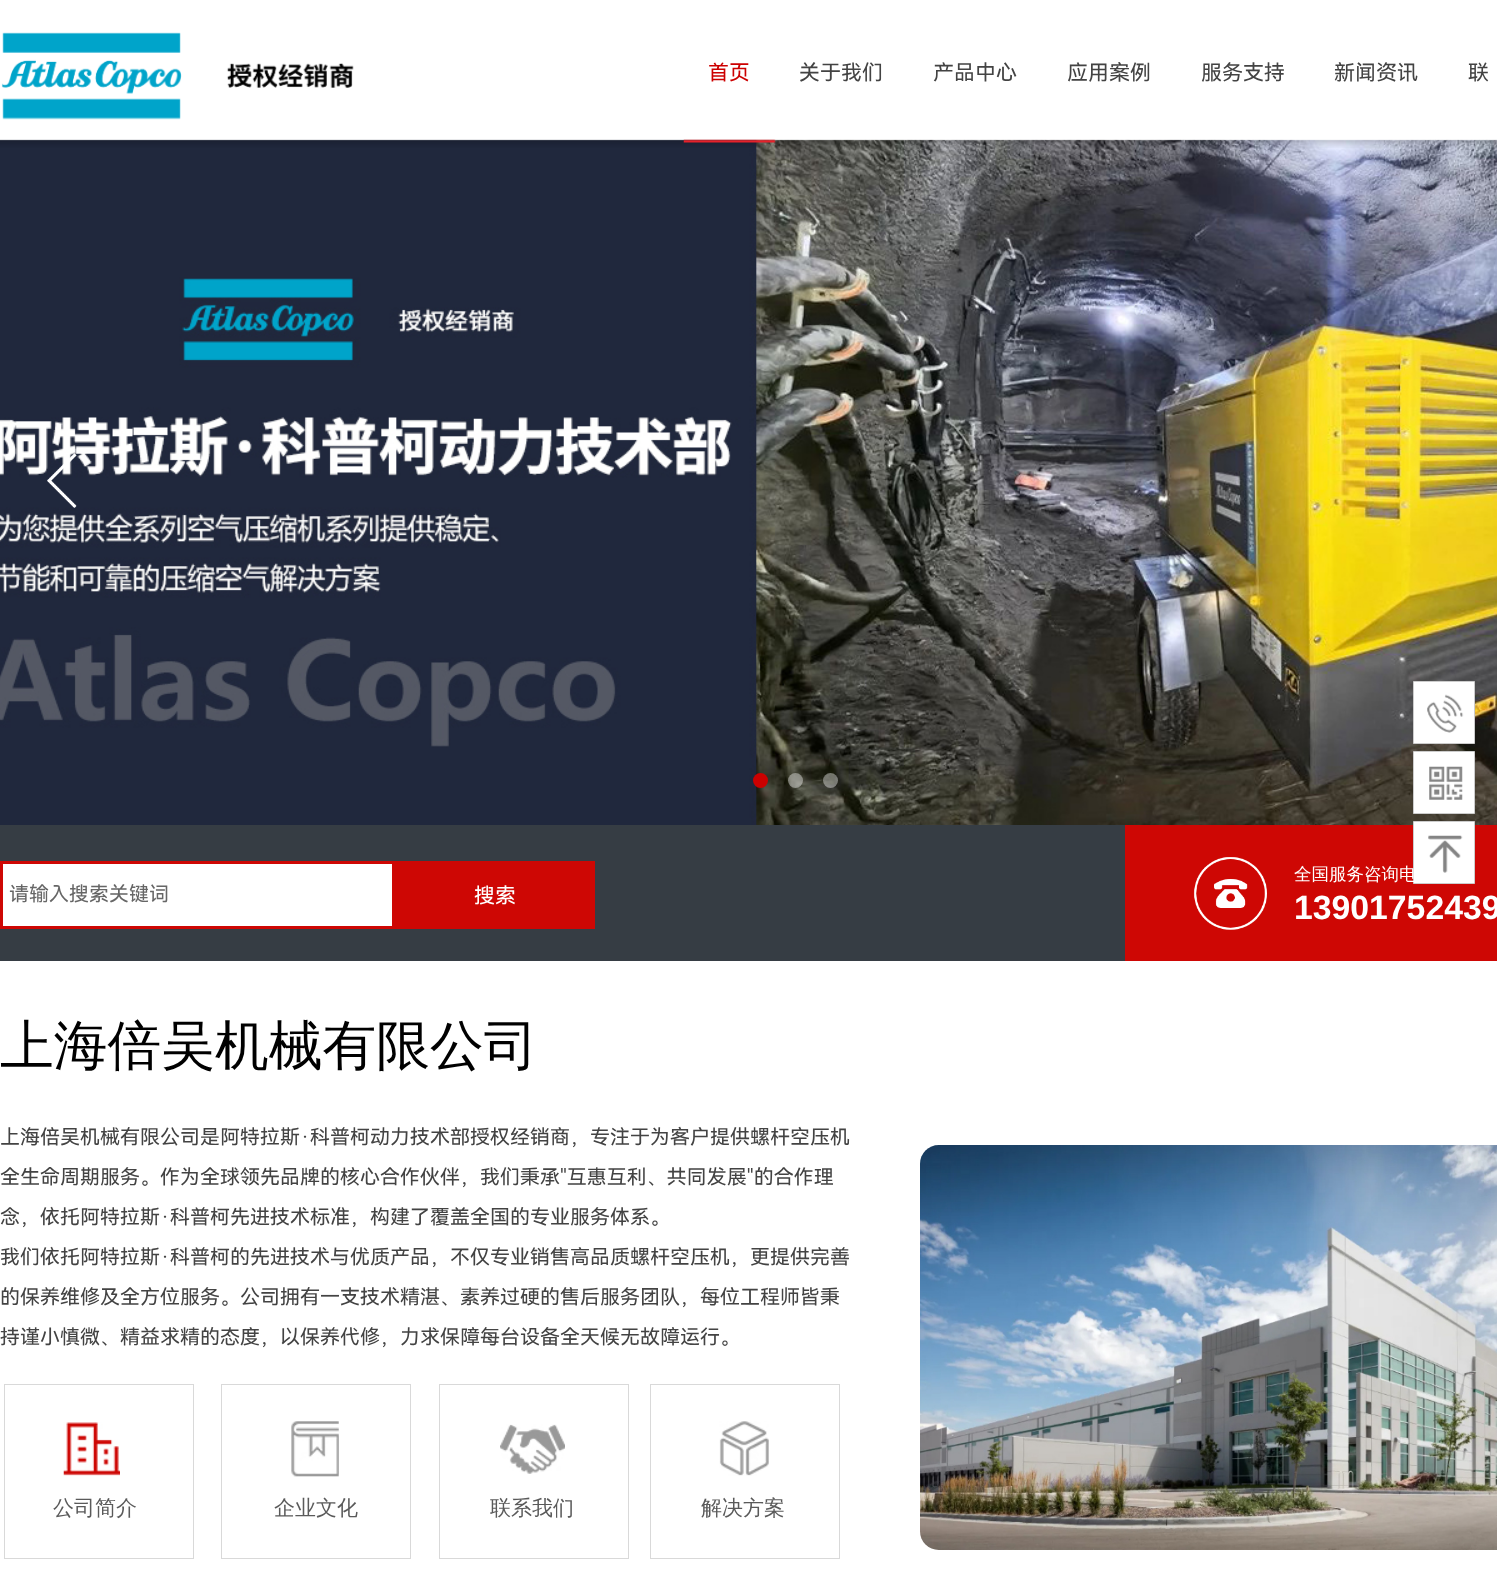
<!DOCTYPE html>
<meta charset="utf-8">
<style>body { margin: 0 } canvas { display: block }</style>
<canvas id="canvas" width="1497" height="1571"></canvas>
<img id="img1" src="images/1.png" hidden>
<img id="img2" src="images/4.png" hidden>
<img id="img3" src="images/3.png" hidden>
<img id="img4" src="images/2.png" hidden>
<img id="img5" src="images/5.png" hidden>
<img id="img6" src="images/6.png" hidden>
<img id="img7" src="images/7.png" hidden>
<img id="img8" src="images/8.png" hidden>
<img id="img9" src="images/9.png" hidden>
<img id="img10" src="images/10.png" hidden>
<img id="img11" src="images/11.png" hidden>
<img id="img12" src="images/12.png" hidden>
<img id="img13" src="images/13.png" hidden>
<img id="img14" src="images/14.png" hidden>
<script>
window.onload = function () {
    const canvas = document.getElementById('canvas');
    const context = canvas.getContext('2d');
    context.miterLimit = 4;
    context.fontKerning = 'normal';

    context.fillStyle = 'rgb(255, 255, 255)';
    context.fillRect(0, 0, 1497, 1571);
    context.drawImage(document.getElementById('img1'), 1, 32, 353, 88);
    context.drawImage(document.getElementById('img2'), 0, 139, 1497, 686);
    context.drawImage(document.getElementById('img3'), 0, 137, 1497, 11);
    context.drawImage(document.getElementById('img4'), 683, 139, 93, 4);
    context.drawImage(document.getElementById('img5'), 47, 453, 30, 55);
    context.fillStyle = 'rgb(204, 0, 0)';
    context.beginPath();
    context.arc(760.5, 780.5, 7.5, 0, 2 * Math.PI);
    context.fill();
    context.fillStyle = 'rgba(255, 255, 255, 0.4)';
    context.beginPath();
    context.arc(795.5, 780.5, 7.5, 0, 2 * Math.PI);
    context.fill();
    context.beginPath();
    context.arc(830.5, 780.5, 7.5, 0, 2 * Math.PI);
    context.fill();
    context.fillStyle = 'rgb(54, 61, 68)';
    context.fillRect(0, 825, 1125, 136);
    context.fillStyle = 'rgb(255, 255, 255)';
    context.beginPath();
    context.rect(1.5, 862.5, 392, 65);
    context.fill();
    context.strokeStyle = 'rgb(206, 7, 4)';
    context.lineWidth = 3;
    context.stroke();
    context.fillStyle = 'rgb(206, 7, 4)';
    context.fillRect(395, 861, 200, 68);
    context.fillRect(1125, 825, 372, 136);
    context.drawImage(document.getElementById('img6'), 1193, 857, 74, 73);
    context.drawImage(document.getElementById('img7'), 920, 1145, 577, 405);
    context.strokeStyle = 'rgb(217, 217, 217)';
    context.lineWidth = 1;
    context.strokeRect(4.5, 1384.5, 189, 174);
    context.drawImage(document.getElementById('img8'), 63, 1422, 57, 54);
    context.strokeRect(221.5, 1384.5, 189, 174);
    context.drawImage(document.getElementById('img9'), 291, 1421, 48, 56);
    context.strokeRect(439.5, 1384.5, 189, 174);
    context.drawImage(document.getElementById('img10'), 500, 1424, 65, 50);
    context.strokeRect(650.5, 1384.5, 189, 174);
    context.drawImage(document.getElementById('img11'), 719, 1421, 50, 55);
    context.fillStyle = 'rgb(255, 255, 255)';
    context.beginPath();
    context.rect(1413.5, 681.5, 61, 62);
    context.fill();
    context.strokeStyle = 'rgb(204, 204, 204)';
    context.stroke();
    context.drawImage(document.getElementById('img12'), 1427, 694, 37, 39);
    context.beginPath();
    context.rect(1413.5, 751.5, 61, 62);
    context.fill();
    context.stroke();
    context.drawImage(document.getElementById('img13'), 1429, 766, 34, 34);
    context.beginPath();
    context.rect(1413.5, 821.5, 61, 62);
    context.fill();
    context.stroke();
    context.drawImage(document.getElementById('img14'), 1428, 835, 35, 38);
    context.font = '21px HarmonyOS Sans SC';
    context.fillStyle = 'rgb(204, 0, 0)';
    context.fillText('首页', 708, 80);
    context.fillStyle = 'rgb(67, 67, 67)';
    context.fillText('关于我们', 799, 80);
    context.fillText('产品中心', 933, 80);
    context.fillText('应用案例', 1067, 80);
    context.fillText('服务支持', 1201, 80);
    context.fillText('新闻资讯', 1334, 80);
    context.fillText('联', 1468, 80);
    context.font = '20px HarmonyOS Sans SC';
    context.fillStyle = 'rgb(102, 102, 102)';
    context.fillText('请输入搜索关键词', 9, 901);
    context.font = '21px HarmonyOS Sans SC';
    context.fillStyle = 'rgb(255, 255, 255)';
    context.fillText('搜索', 474, 903);
    context.font = '500 17.5px WenQuanYi Zen Hei';
    context.fillText('全国服务咨询电', 1294, 880);
    context.font = 'bold 33.75px Liberation Sans';
    context.fillText('13901752439', 1294, 919);
    context.font = '500 53.75px WenQuanYi Zen Hei';
    context.fillStyle = 'rgb(0, 0, 0)';
    context.fillText('上海倍吴机械有限公司', 0, 1064);
    context.font = '20px HarmonyOS Sans SC';
    context.fillStyle = 'rgb(67, 67, 67)';
    context.fillText('上海倍吴机械有限公司是阿特拉斯·科普柯动力技术部授权经销商，专注于为客户提供螺杆空压机', 0, 1144);
    context.fillText('全生命周期服务。作为全球领先品牌的核心合作伙伴，我们秉承"互惠互利、共同发展"的合作理', 0, 1184);
    context.fillText('念，依托阿特拉斯·科普柯先进技术标准，构建了覆盖全国的专业服务体系。', 0, 1224);
    context.fillText('我们依托阿特拉斯·科普柯的先进技术与优质产品，不仅专业销售高品质螺杆空压机，更提供完善', 0, 1264);
    context.fillText('的保养维修及全方位服务。公司拥有一支技术精湛、素养过硬的售后服务团队，每位工程师皆秉', 0, 1304);
    context.fillText('持谨小慎微、精益求精的态度，以保养代修，力求保障每台设备全天候无故障运行。', 0, 1344);
    context.font = '500 21px WenQuanYi Zen Hei';
    context.fillStyle = 'rgb(90, 90, 90)';
    context.fillText('公司简介', 53, 1515);
    context.fillText('企业文化', 274, 1515);
    context.fillText('联系我们', 490, 1515);
    context.fillText('解决方案', 701, 1515);
};
</script>
